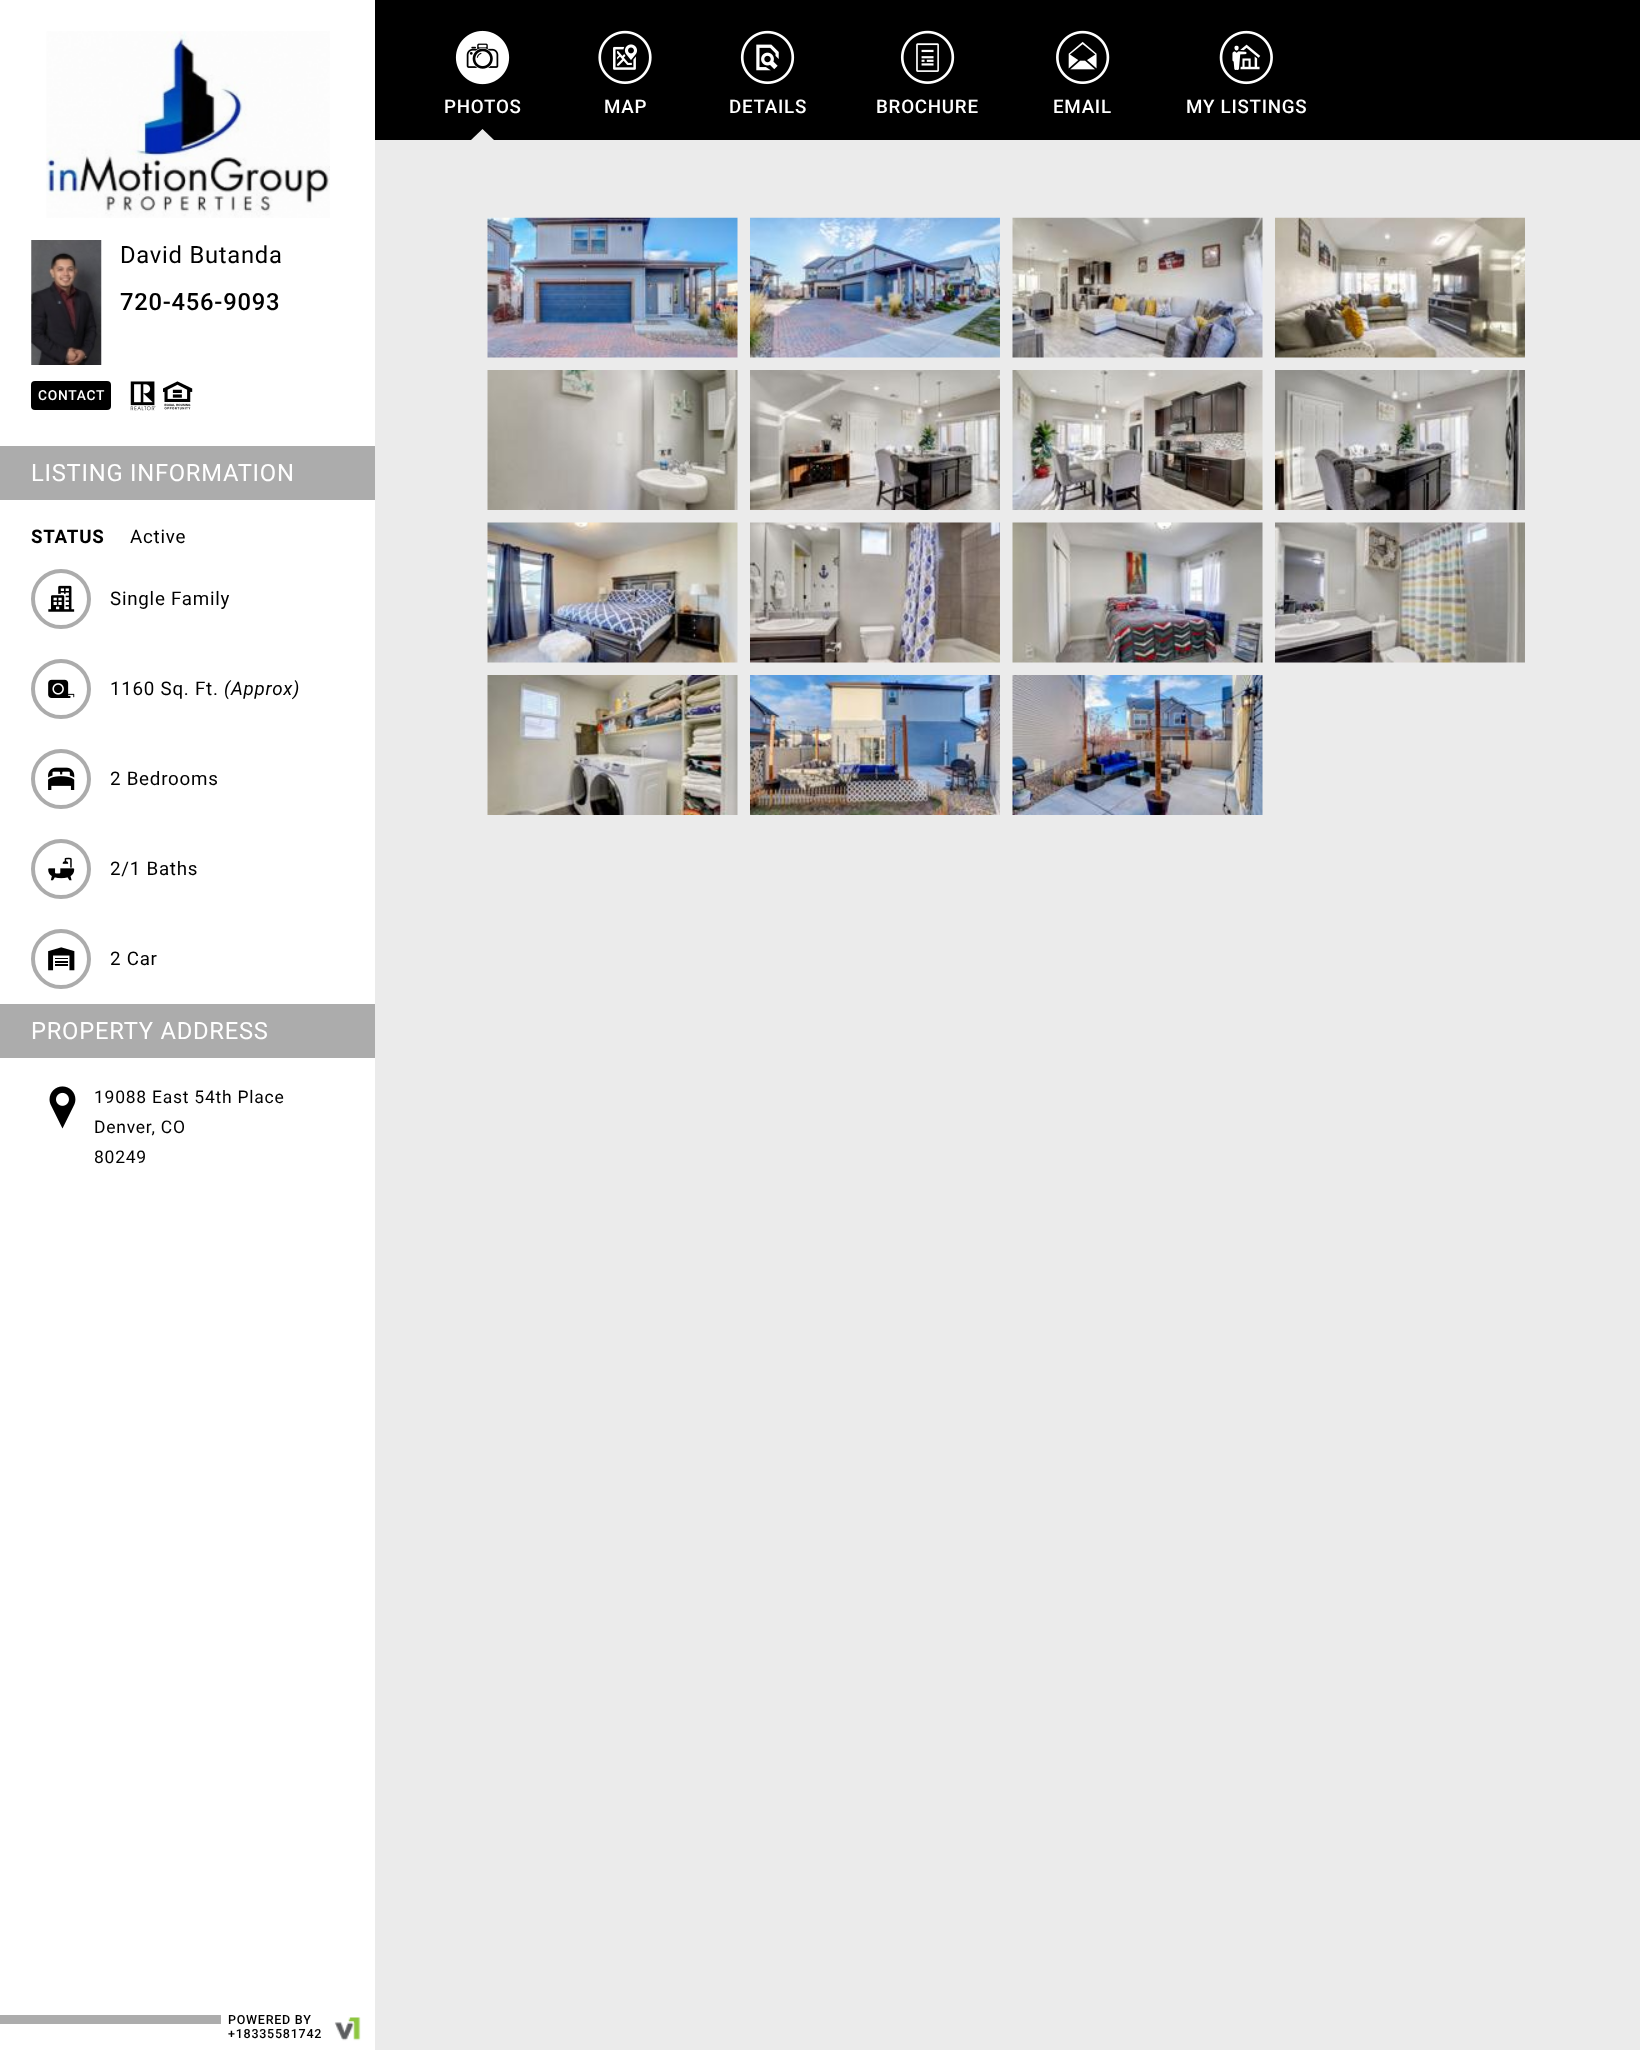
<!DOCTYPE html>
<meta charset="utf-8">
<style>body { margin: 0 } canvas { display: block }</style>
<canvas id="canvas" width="1640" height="2050"></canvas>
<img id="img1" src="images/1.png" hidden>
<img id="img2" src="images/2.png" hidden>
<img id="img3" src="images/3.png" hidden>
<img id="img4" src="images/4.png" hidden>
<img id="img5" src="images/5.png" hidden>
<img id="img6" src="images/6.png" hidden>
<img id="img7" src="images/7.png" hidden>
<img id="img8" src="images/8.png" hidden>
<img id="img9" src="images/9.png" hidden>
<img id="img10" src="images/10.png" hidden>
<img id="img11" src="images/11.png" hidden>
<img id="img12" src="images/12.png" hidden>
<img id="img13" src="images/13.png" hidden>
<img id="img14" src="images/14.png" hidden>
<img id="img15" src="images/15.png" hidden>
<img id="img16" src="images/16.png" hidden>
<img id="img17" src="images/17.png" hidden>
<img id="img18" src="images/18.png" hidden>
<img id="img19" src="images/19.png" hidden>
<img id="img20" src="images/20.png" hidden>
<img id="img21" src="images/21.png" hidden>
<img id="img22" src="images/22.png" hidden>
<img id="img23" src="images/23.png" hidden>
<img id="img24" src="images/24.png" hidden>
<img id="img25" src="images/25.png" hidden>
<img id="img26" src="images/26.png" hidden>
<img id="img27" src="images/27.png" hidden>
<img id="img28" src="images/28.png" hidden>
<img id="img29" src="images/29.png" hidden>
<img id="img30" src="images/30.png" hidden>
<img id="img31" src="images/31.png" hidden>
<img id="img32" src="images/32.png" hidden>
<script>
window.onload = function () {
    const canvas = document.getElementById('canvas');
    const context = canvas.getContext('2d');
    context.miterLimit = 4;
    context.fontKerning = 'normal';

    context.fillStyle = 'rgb(235, 235, 235)';
    context.fillRect(0, 0, 1640, 2050);
    context.fillStyle = 'rgb(0, 0, 0)';
    context.fillRect(375, 0, 1265, 140);
    context.drawImage(document.getElementById('img1'), 455, 30, 55, 55);
    context.fillStyle = 'rgb(235, 235, 235)';
    context.beginPath();
    context.moveTo(494, 140);
    context.lineTo(471, 140);
    context.lineTo(482.5, 129);
    context.closePath();
    context.fill();
    context.drawImage(document.getElementById('img2'), 598, 30, 54, 54);
    context.drawImage(document.getElementById('img3'), 740, 30, 55, 55);
    context.drawImage(document.getElementById('img4'), 900, 30, 55, 54);
    context.drawImage(document.getElementById('img5'), 1056, 30, 54, 54);
    context.drawImage(document.getElementById('img6'), 1219, 30, 54, 55);
    context.drawImage(document.getElementById('img7'), 487, 217, 251, 141);
    context.drawImage(document.getElementById('img8'), 750, 217, 250, 141);
    context.drawImage(document.getElementById('img9'), 1012, 217, 251, 141);
    context.drawImage(document.getElementById('img10'), 1275, 217, 250, 141);
    context.drawImage(document.getElementById('img11'), 487, 370, 251, 140);
    context.drawImage(document.getElementById('img12'), 750, 370, 250, 140);
    context.drawImage(document.getElementById('img13'), 1012, 370, 251, 140);
    context.drawImage(document.getElementById('img14'), 1275, 370, 250, 140);
    context.drawImage(document.getElementById('img15'), 487, 522, 251, 141);
    context.drawImage(document.getElementById('img16'), 750, 522, 250, 141);
    context.drawImage(document.getElementById('img17'), 1012, 522, 251, 141);
    context.drawImage(document.getElementById('img18'), 1275, 522, 250, 141);
    context.drawImage(document.getElementById('img19'), 487, 675, 251, 140);
    context.drawImage(document.getElementById('img20'), 750, 675, 250, 140);
    context.drawImage(document.getElementById('img21'), 1012, 675, 251, 140);
    context.fillStyle = 'rgb(255, 255, 255)';
    context.fillRect(0, 0, 375, 2050);
    context.drawImage(document.getElementById('img22'), 46, 31, 284, 187);
    context.drawImage(document.getElementById('img23'), 31, 240, 71, 125);
    context.fillStyle = 'rgb(0, 0, 0)';
    context.beginPath();
    context.roundRect(31, 381, 80, 29, 4);
    context.fill();
    context.drawImage(document.getElementById('img24'), 130, 381, 26, 30);
    context.drawImage(document.getElementById('img25'), 163, 381, 30, 29);
    context.fillStyle = 'rgb(172, 172, 172)';
    context.fillRect(0, 446, 375, 54);
    context.beginPath();
    context.arc(61, 599, 28, 0, 2 * Math.PI);
    context.strokeStyle = 'rgb(172, 172, 172)';
    context.lineWidth = 4;
    context.stroke();
    context.drawImage(document.getElementById('img26'), 48, 585, 27, 27);
    context.beginPath();
    context.arc(61, 689, 28, 0, 2 * Math.PI);
    context.stroke();
    context.drawImage(document.getElementById('img27'), 48, 679, 27, 19);
    context.beginPath();
    context.arc(61, 779, 28, 0, 2 * Math.PI);
    context.stroke();
    context.drawImage(document.getElementById('img28'), 48, 767, 27, 23);
    context.beginPath();
    context.arc(61, 869, 28, 0, 2 * Math.PI);
    context.stroke();
    context.drawImage(document.getElementById('img29'), 48, 857, 27, 24);
    context.beginPath();
    context.arc(61, 959, 28, 0, 2 * Math.PI);
    context.stroke();
    context.drawImage(document.getElementById('img30'), 48, 947, 27, 24);
    context.fillRect(0, 1004, 375, 54);
    context.drawImage(document.getElementById('img31'), 49, 1086, 27, 43);
    context.fillRect(0, 2015, 221, 9);
    context.drawImage(document.getElementById('img32'), 334, 2017, 27, 24);
    context.letterSpacing = '0.75px';
    context.font = '500 18.75px Roboto';
    context.fillStyle = 'rgb(255, 255, 255)';
    context.fillText('PHOTOS', 444, 113);
    context.fillText('MAP', 604, 113);
    context.fillText('DETAILS', 729, 113);
    context.fillText('BROCHURE', 876, 113);
    context.fillText('EMAIL', 1053, 113);
    context.fillText('MY LISTINGS', 1186, 113);
    context.font = '23.75px Roboto';
    context.fillStyle = 'rgb(0, 0, 0)';
    context.fillText('David Butanda', 120, 263);
    context.font = '500 23.75px Roboto';
    context.fillText('720-456-9093', 120, 310);
    context.font = '500 13.75px Roboto';
    context.fillStyle = 'rgb(255, 255, 255)';
    context.fillText('CONTACT', 38, 400);
    context.font = '23.75px Roboto';
    context.fillText('LISTING INFORMATION', 31, 481);
    context.font = 'bold 18.75px Roboto';
    context.fillStyle = 'rgb(0, 0, 0)';
    context.fillText('STATUS', 31, 543);
    context.font = '18.75px Roboto';
    context.fillText('Active', 130, 543);
    context.fillText('Single Family', 110, 605);
    context.fillText('1160 Sq. Ft.', 110, 695);
    context.font = 'italic 18.75px Roboto';
    context.fillText('(Approx)', 224, 695);
    context.font = '18.75px Roboto';
    context.fillText('2 Bedrooms', 110, 785);
    context.fillText('2/1 Baths', 110, 875);
    context.fillText('2 Car', 110, 965);
    context.font = '23.75px Roboto';
    context.fillStyle = 'rgb(255, 255, 255)';
    context.fillText('PROPERTY ADDRESS', 31, 1039);
    context.font = '17.5px Roboto';
    context.fillStyle = 'rgb(0, 0, 0)';
    context.fillText('19088 East 54th Place', 94, 1103);
    context.fillText('Denver, CO', 94, 1133);
    context.fillText('80249', 94, 1163);
    context.font = '500 12.5px Roboto';
    context.fillText('POWERED BY', 228, 2024);
    context.fillText('+18335581742', 228, 2038);
};
</script>
